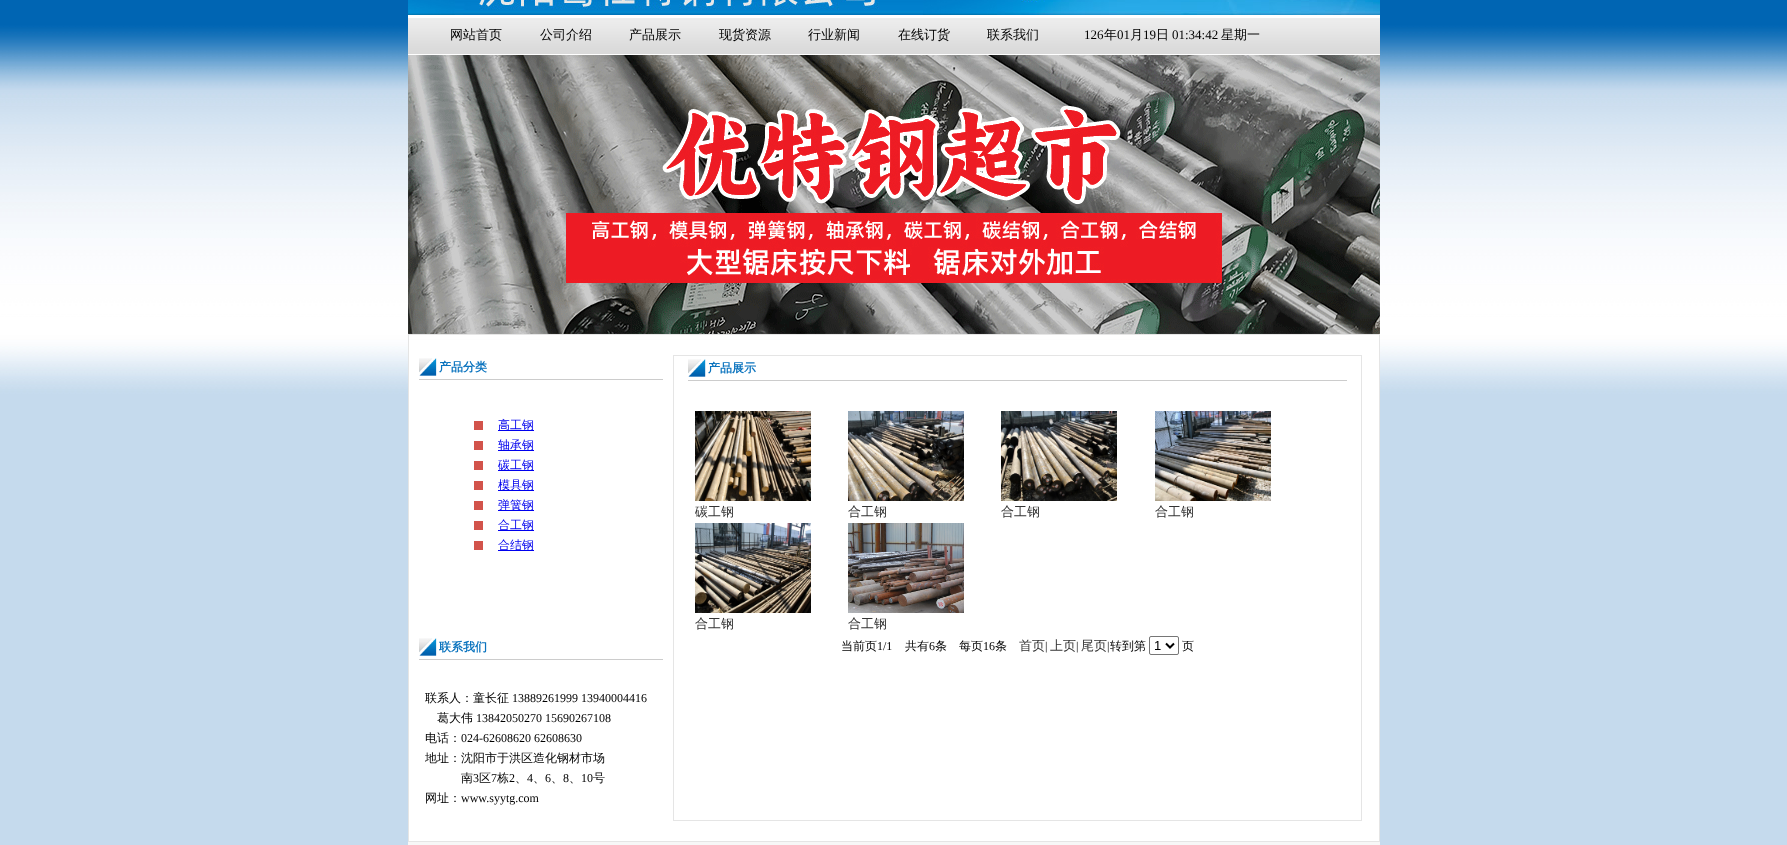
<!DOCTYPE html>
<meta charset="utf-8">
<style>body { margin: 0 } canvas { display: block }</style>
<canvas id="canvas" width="1787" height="845"></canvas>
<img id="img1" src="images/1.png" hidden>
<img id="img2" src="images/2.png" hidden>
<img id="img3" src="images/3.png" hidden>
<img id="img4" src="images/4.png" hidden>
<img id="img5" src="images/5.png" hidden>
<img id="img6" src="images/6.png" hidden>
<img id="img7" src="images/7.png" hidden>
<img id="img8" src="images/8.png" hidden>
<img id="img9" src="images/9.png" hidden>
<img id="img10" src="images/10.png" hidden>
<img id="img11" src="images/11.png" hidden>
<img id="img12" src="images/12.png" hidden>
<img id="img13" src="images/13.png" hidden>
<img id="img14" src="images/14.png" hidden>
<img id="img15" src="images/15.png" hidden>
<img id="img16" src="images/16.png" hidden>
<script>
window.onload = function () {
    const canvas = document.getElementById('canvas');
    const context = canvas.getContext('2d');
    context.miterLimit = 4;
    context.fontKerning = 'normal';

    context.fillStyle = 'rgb(255, 255, 255)';
    context.fillRect(0, 0, 1787, 845);
    context.drawImage(document.getElementById('img1'), 0, 0, 1787, 845);
    context.fillRect(408, 15, 972, 40);
    context.drawImage(document.getElementById('img2'), 408, 0, 47, 15);
    context.drawImage(document.getElementById('img3'), 455, 0, 468, 15);
    context.drawImage(document.getElementById('img4'), 923, 0, 74, 15);
    context.drawImage(document.getElementById('img5'), 997, 0, 383, 15);
    context.drawImage(document.getElementById('img6'), 408, 18, 972, 36);
    context.drawImage(document.getElementById('img7'), 408, 55, 972, 279);
    context.fillRect(409, 340, 970, 501);
    context.strokeStyle = 'rgb(229, 229, 229)';
    context.strokeRect(408.5, 334.5, 971, 507);
    context.fillStyle = 'rgb(204, 204, 204)';
    context.fillRect(419, 379, 244, 1);
    context.drawImage(document.getElementById('img8'), 419, 358, 18, 18);
    context.fillStyle = 'rgb(210, 83, 75)';
    context.fillRect(474, 421, 9, 9);
    context.fillStyle = 'rgb(0, 0, 238)';
    context.fillRect(498, 430, 36, 1);
    context.fillStyle = 'rgb(210, 83, 75)';
    context.fillRect(474, 441, 9, 9);
    context.fillStyle = 'rgb(0, 0, 238)';
    context.fillRect(498, 450, 36, 1);
    context.fillStyle = 'rgb(210, 83, 75)';
    context.fillRect(474, 461, 9, 9);
    context.fillStyle = 'rgb(0, 0, 238)';
    context.fillRect(498, 470, 36, 1);
    context.fillStyle = 'rgb(210, 83, 75)';
    context.fillRect(474, 481, 9, 9);
    context.fillStyle = 'rgb(0, 0, 238)';
    context.fillRect(498, 490, 36, 1);
    context.fillStyle = 'rgb(210, 83, 75)';
    context.fillRect(474, 501, 9, 9);
    context.fillStyle = 'rgb(0, 0, 238)';
    context.fillRect(498, 510, 36, 1);
    context.fillStyle = 'rgb(210, 83, 75)';
    context.fillRect(474, 521, 9, 9);
    context.fillStyle = 'rgb(0, 0, 238)';
    context.fillRect(498, 530, 36, 1);
    context.fillStyle = 'rgb(210, 83, 75)';
    context.fillRect(474, 541, 9, 9);
    context.fillStyle = 'rgb(0, 0, 238)';
    context.fillRect(498, 550, 36, 1);
    context.fillStyle = 'rgb(204, 204, 204)';
    context.fillRect(419, 659, 244, 1);
    context.drawImage(document.getElementById('img9'), 419, 638, 18, 18);
    context.strokeRect(673.5, 355.5, 688, 465);
    context.fillRect(688, 380, 659, 1);
    context.drawImage(document.getElementById('img10'), 688, 359, 18, 18);
    context.drawImage(document.getElementById('img11'), 695, 411, 116, 90);
    context.drawImage(document.getElementById('img12'), 848, 411, 116, 90);
    context.drawImage(document.getElementById('img13'), 1001, 411, 116, 90);
    context.drawImage(document.getElementById('img14'), 1155, 411, 116, 90);
    context.drawImage(document.getElementById('img15'), 695, 523, 116, 90);
    context.drawImage(document.getElementById('img16'), 848, 523, 116, 90);
    context.beginPath();
    context.roundRect(1149.5, 636.5, 29, 18, 1.5);
    context.strokeStyle = 'rgb(118, 118, 118)';
    context.stroke();
    context.beginPath();
    context.moveTo(1166, 643.5);
    context.lineTo(1170, 647.5);
    context.lineTo(1174, 643.5);
    context.strokeStyle = 'rgb(0, 0, 0)';
    context.lineWidth = 2;
    context.stroke();
    context.fillStyle = 'rgb(247, 247, 247)';
    context.fillRect(408, 842, 972, 3);
    context.font = '500 13px WenQuanYi Zen Hei';
    context.fillStyle = 'rgb(0, 0, 0)';
    context.fillText('网站首页', 450, 39);
    context.fillText('公司介绍', 540, 39);
    context.fillText('产品展示', 629, 39);
    context.fillText('现货资源', 719, 39);
    context.fillText('行业新闻', 808, 39);
    context.fillText('在线订货', 898, 39);
    context.fillText('联系我们', 987, 39);
    context.font = '13px Liberation Serif';
    context.fillText('126', 1084, 39);
    context.font = '500 13px WenQuanYi Zen Hei';
    context.fillText('年', 1104, 39);
    context.font = '13px Liberation Serif';
    context.fillText('01', 1117, 39);
    context.font = '500 13px WenQuanYi Zen Hei';
    context.fillText('月', 1130, 39);
    context.font = '13px Liberation Serif';
    context.fillText('19', 1143, 39);
    context.font = '500 13px WenQuanYi Zen Hei';
    context.fillText('日', 1156, 39);
    context.font = '13px Liberation Serif';
    context.fillText('01:34:42', 1172, 39);
    context.font = '500 13px WenQuanYi Zen Hei';
    context.fillText('星期一', 1221, 39);
    context.font = 'bold 12px WenQuanYi Zen Hei';
    context.fillStyle = 'rgb(10, 115, 190)';
    context.fillText('产品分类', 439, 371);
    context.font = '500 12px WenQuanYi Zen Hei';
    context.fillStyle = 'rgb(0, 0, 238)';
    context.fillText('高工钢', 498, 429);
    context.fillText('轴承钢', 498, 449);
    context.fillText('碳工钢', 498, 469);
    context.fillText('模具钢', 498, 489);
    context.fillText('弹簧钢', 498, 509);
    context.fillText('合工钢', 498, 529);
    context.fillText('合结钢', 498, 549);
    context.font = 'bold 12px WenQuanYi Zen Hei';
    context.fillStyle = 'rgb(10, 115, 190)';
    context.fillText('联系我们', 439, 651);
    context.font = '500 12px WenQuanYi Zen Hei';
    context.fillStyle = 'rgb(0, 0, 0)';
    context.fillText('联系人：童长征', 425, 702);
    context.font = '12px Liberation Serif';
    context.fillText('13889261999 13940004416', 512, 702);
    context.font = '500 12px WenQuanYi Zen Hei';
    context.fillText('葛大伟', 437, 722);
    context.font = '12px Liberation Serif';
    context.fillText('13842050270 15690267108', 476, 722);
    context.font = '500 12px WenQuanYi Zen Hei';
    context.fillText('电话：', 425, 742);
    context.font = '12px Liberation Serif';
    context.fillText('024-62608620 62608630', 461, 742);
    context.font = '500 12px WenQuanYi Zen Hei';
    context.fillText('地址：沈阳市于洪区造化钢材市场', 425, 762);
    context.fillText('南', 461, 782);
    context.font = '12px Liberation Serif';
    context.fillText('3', 473, 782);
    context.font = '500 12px WenQuanYi Zen Hei';
    context.fillText('区', 479, 782);
    context.font = '12px Liberation Serif';
    context.fillText('7', 491, 782);
    context.font = '500 12px WenQuanYi Zen Hei';
    context.fillText('栋', 497, 782);
    context.font = '12px Liberation Serif';
    context.fillText('2', 509, 782);
    context.font = '500 12px WenQuanYi Zen Hei';
    context.fillText('、', 515, 782);
    context.font = '12px Liberation Serif';
    context.fillText('4', 527, 782);
    context.font = '500 12px WenQuanYi Zen Hei';
    context.fillText('、', 533, 782);
    context.font = '12px Liberation Serif';
    context.fillText('6', 545, 782);
    context.font = '500 12px WenQuanYi Zen Hei';
    context.fillText('、', 551, 782);
    context.font = '12px Liberation Serif';
    context.fillText('8', 563, 782);
    context.font = '500 12px WenQuanYi Zen Hei';
    context.fillText('、', 569, 782);
    context.font = '12px Liberation Serif';
    context.fillText('10', 581, 782);
    context.font = '500 12px WenQuanYi Zen Hei';
    context.fillText('号', 593, 782);
    context.fillText('网址：', 425, 802);
    context.font = '12px Liberation Serif';
    context.fillText('www.syytg.com', 461, 802);
    context.font = 'bold 12px WenQuanYi Zen Hei';
    context.fillStyle = 'rgb(10, 115, 190)';
    context.fillText('产品展示', 708, 372);
    context.font = '500 13px WenQuanYi Zen Hei';
    context.fillStyle = 'rgb(51, 51, 51)';
    context.fillText('碳工钢', 695, 516);
    context.fillText('合工钢', 848, 516);
    context.fillText('合工钢', 1001, 516);
    context.fillText('合工钢', 1155, 516);
    context.fillText('合工钢', 695, 628);
    context.fillText('合工钢', 848, 628);
    context.font = '500 12px WenQuanYi Zen Hei';
    context.fillStyle = 'rgb(0, 0, 0)';
    context.fillText('当前页', 841, 650);
    context.font = '12px Liberation Serif';
    context.fillText('1/1', 877, 650);
    context.font = '500 12px WenQuanYi Zen Hei';
    context.fillText('共有', 905, 650);
    context.font = '12px Liberation Serif';
    context.fillText('6', 929, 650);
    context.font = '500 12px WenQuanYi Zen Hei';
    context.fillText('条　每页', 935, 650);
    context.font = '12px Liberation Serif';
    context.fillText('16', 983, 650);
    context.font = '500 12px WenQuanYi Zen Hei';
    context.fillText('条', 995, 650);
    context.font = '500 13px WenQuanYi Zen Hei';
    context.fillStyle = 'rgb(51, 51, 51)';
    context.fillText('首页', 1019, 650);
    context.font = '12px Liberation Serif';
    context.fillStyle = 'rgb(0, 0, 0)';
    context.fillText('|', 1045, 650);
    context.font = '500 13px WenQuanYi Zen Hei';
    context.fillStyle = 'rgb(51, 51, 51)';
    context.fillText('上页', 1050, 650);
    context.font = '12px Liberation Serif';
    context.fillStyle = 'rgb(0, 0, 0)';
    context.fillText('|', 1076, 650);
    context.font = '500 13px WenQuanYi Zen Hei';
    context.fillStyle = 'rgb(51, 51, 51)';
    context.fillText('尾页', 1081, 650);
    context.font = '12px Liberation Serif';
    context.fillStyle = 'rgb(0, 0, 0)';
    context.fillText('|', 1107, 650);
    context.font = '500 12px WenQuanYi Zen Hei';
    context.fillText('转到第', 1110, 650);
    context.font = '13px Liberation Sans';
    context.fillText('1', 1154, 650);
    context.font = '500 12px WenQuanYi Zen Hei';
    context.fillText('页', 1182, 650);
};
</script>
